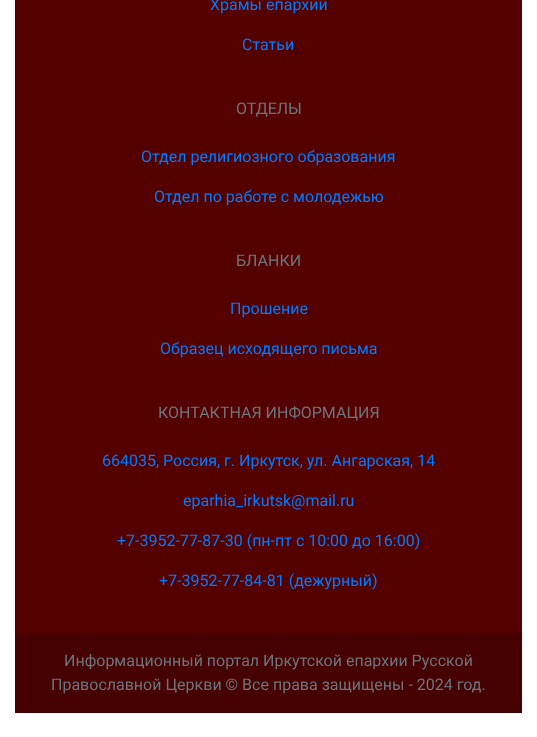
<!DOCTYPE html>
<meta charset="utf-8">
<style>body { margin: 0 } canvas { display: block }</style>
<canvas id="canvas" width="537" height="737"></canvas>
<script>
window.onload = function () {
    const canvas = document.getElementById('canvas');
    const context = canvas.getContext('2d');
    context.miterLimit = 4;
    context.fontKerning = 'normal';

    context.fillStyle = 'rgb(255, 255, 255)';
    context.fillRect(0, 0, 537, 737);
    context.fillStyle = 'rgb(85, 0, 0)';
    context.fillRect(15, 0, 507, 633);
    context.fillStyle = 'rgb(70, 0, 0)';
    context.fillRect(15, 633, 507, 80);
    context.font = '16px Roboto';
    context.fillStyle = 'rgb(0, 123, 255)';
    context.fillText('Храмы епархии', 210, 10);
    context.fillText('Статьи', 242, 50);
    context.fillStyle = 'rgb(108, 117, 125)';
    context.fillText('ОТДЕЛЫ', 236, 114);
    context.fillStyle = 'rgb(0, 123, 255)';
    context.fillText('Отдел религиозного образования', 141, 162);
    context.fillText('Отдел по работе с молодежью', 154, 202);
    context.fillStyle = 'rgb(108, 117, 125)';
    context.fillText('БЛАНКИ', 236, 266);
    context.fillStyle = 'rgb(0, 123, 255)';
    context.fillText('Прошение', 230, 314);
    context.fillText('Образец исходящего письма', 160, 354);
    context.fillStyle = 'rgb(108, 117, 125)';
    context.fillText('КОНТАКТНАЯ ИНФОРМАЦИЯ', 158, 418);
    context.fillStyle = 'rgb(0, 123, 255)';
    context.fillText('664035, Россия, г. Иркутск, ул. Ангарская, 14', 102, 466);
    context.fillText('eparhia_irkutsk@mail.ru', 183, 506);
    context.fillText('+7-3952-77-87-30 (пн-пт с 10:00 до 16:00)', 117, 546);
    context.fillText('+7-3952-77-84-81 (дежурный)', 159, 586);
    context.fillStyle = 'rgb(108, 117, 125)';
    context.fillText('Информационный портал Иркутской епархии Русской', 64, 666);
    context.fillText('Православной Церкви © Все права защищены - 2024 год.', 51, 690);
};
</script>
